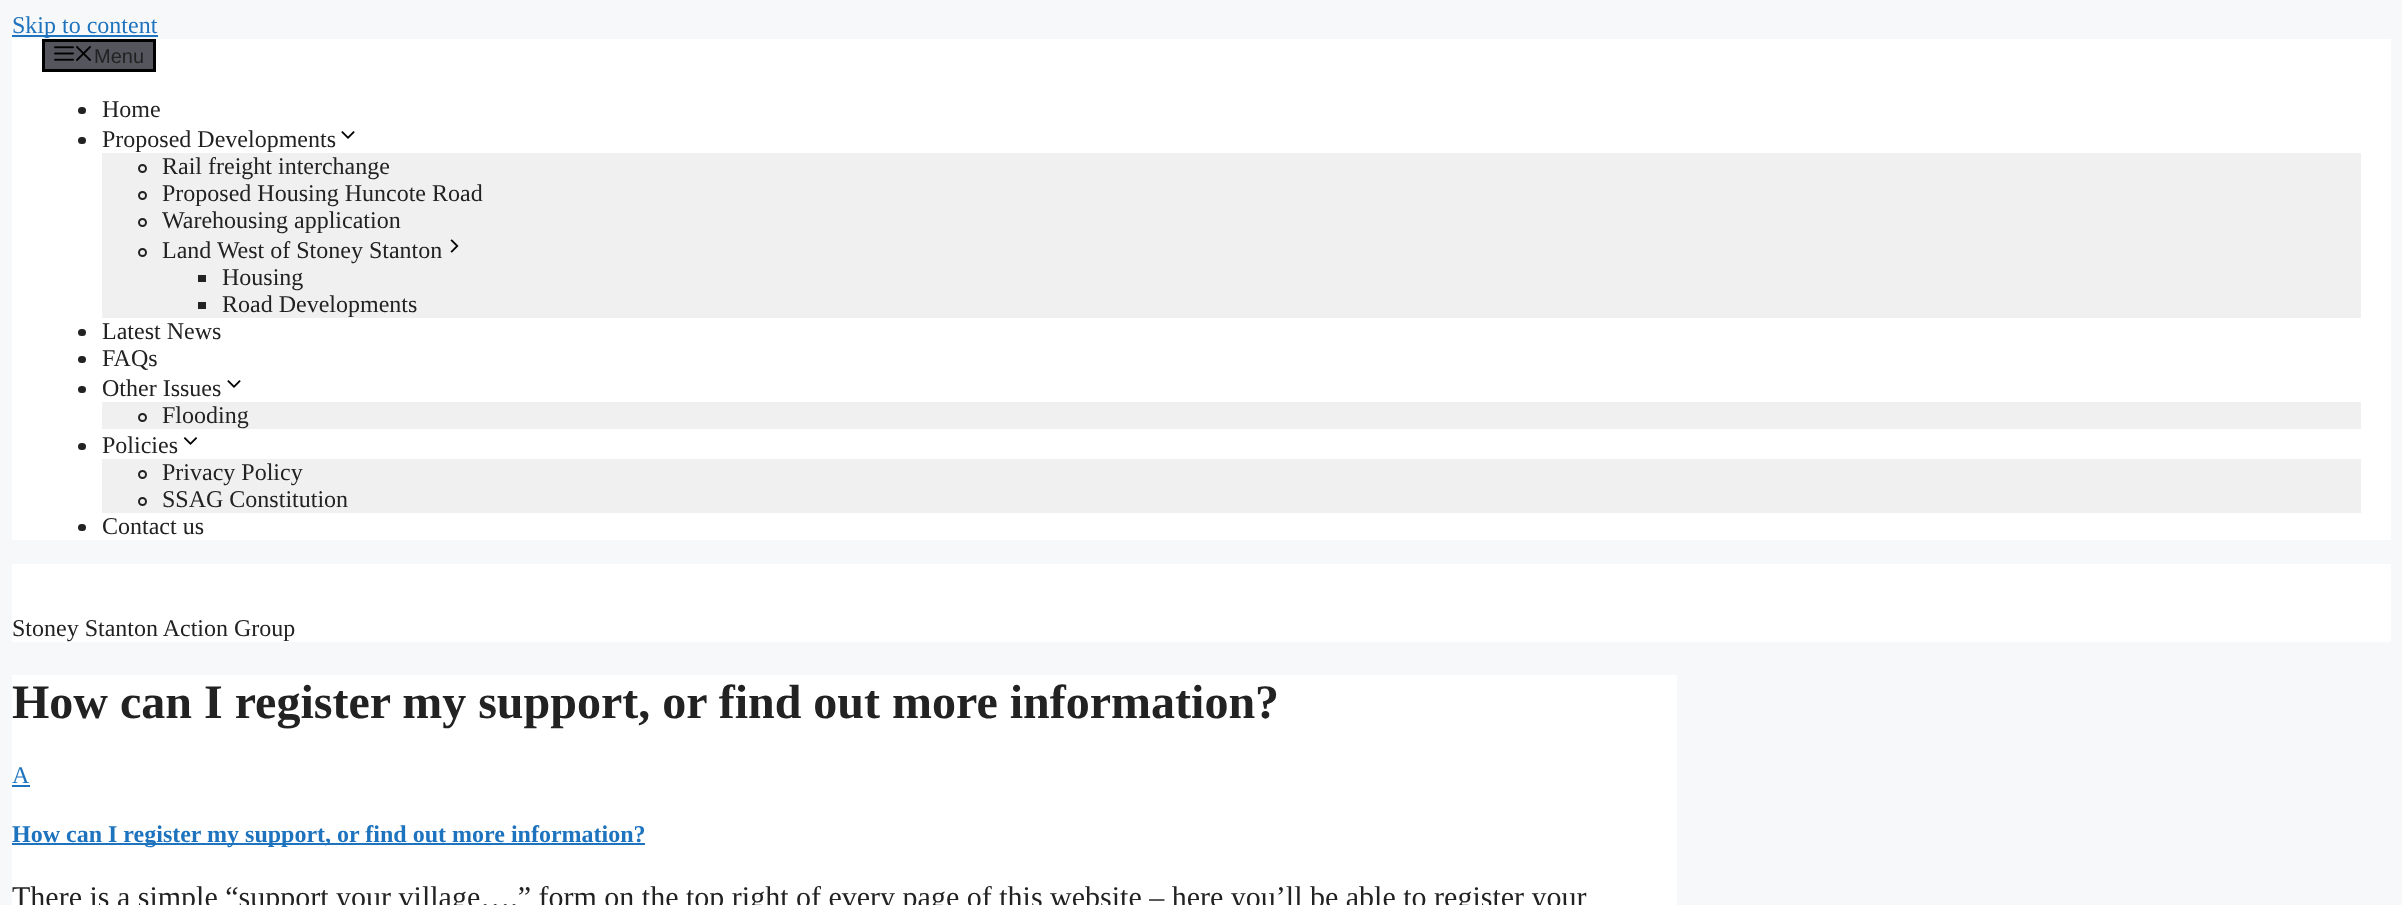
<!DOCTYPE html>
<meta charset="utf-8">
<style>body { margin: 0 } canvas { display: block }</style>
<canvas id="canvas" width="2402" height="905"></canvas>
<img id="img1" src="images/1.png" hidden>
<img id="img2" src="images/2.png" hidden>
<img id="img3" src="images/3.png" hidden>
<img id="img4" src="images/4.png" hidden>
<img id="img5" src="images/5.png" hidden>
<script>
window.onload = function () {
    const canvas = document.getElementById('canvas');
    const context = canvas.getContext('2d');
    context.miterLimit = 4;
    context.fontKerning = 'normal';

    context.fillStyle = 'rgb(247, 248, 249)';
    context.fillRect(0, 0, 2402, 905);
    context.fillStyle = 'rgb(30, 115, 190)';
    context.fillRect(12, 35, 146, 2);
    context.fillStyle = 'rgb(255, 255, 255)';
    context.fillRect(12, 39, 2379, 501);
    context.fillStyle = 'rgb(85, 85, 94)';
    context.beginPath();
    context.rect(43.5, 40.5, 111, 30);
    context.fill();
    context.strokeStyle = 'rgb(0, 0, 0)';
    context.lineWidth = 3;
    context.stroke();
    context.drawImage(document.getElementById('img1'), 54, 46, 20, 15);
    context.drawImage(document.getElementById('img2'), 76, 46, 15, 15);
    context.fillStyle = 'rgb(34, 34, 34)';
    context.beginPath();
    context.roundRect(78, 107, 8, 7, 3.5);
    context.fill();
    context.drawImage(document.getElementById('img3'), 341, 131, 14, 8);
    context.beginPath();
    context.roundRect(78, 137, 8, 7, 3.5);
    context.fill();
    context.fillStyle = 'rgb(240, 240, 240)';
    context.fillRect(102, 153, 2259, 165);
    context.beginPath();
    context.arc(142.5, 168.5, 3.5, 0, 2 * Math.PI);
    context.strokeStyle = 'rgb(34, 34, 34)';
    context.lineWidth = 2;
    context.stroke();
    context.beginPath();
    context.arc(142.5, 195.5, 3.5, 0, 2 * Math.PI);
    context.stroke();
    context.beginPath();
    context.arc(142.5, 222.5, 3.5, 0, 2 * Math.PI);
    context.stroke();
    context.beginPath();
    context.arc(142.5, 252.5, 3.5, 0, 2 * Math.PI);
    context.stroke();
    context.drawImage(document.getElementById('img4'), 450, 239, 9, 14);
    context.fillStyle = 'rgb(34, 34, 34)';
    context.fillRect(198, 275, 8, 7);
    context.fillRect(198, 302, 8, 7);
    context.beginPath();
    context.roundRect(78, 329, 8, 7, 3.5);
    context.fill();
    context.beginPath();
    context.roundRect(78, 356, 8, 7, 3.5);
    context.fill();
    context.drawImage(document.getElementById('img3'), 227, 380, 14, 8);
    context.beginPath();
    context.roundRect(78, 386, 8, 7, 3.5);
    context.fill();
    context.fillStyle = 'rgb(240, 240, 240)';
    context.fillRect(102, 402, 2259, 27);
    context.beginPath();
    context.arc(142.5, 417.5, 3.5, 0, 2 * Math.PI);
    context.stroke();
    context.drawImage(document.getElementById('img5'), 183, 437, 15, 8);
    context.fillStyle = 'rgb(34, 34, 34)';
    context.beginPath();
    context.roundRect(78, 443, 8, 7, 3.5);
    context.fill();
    context.fillStyle = 'rgb(240, 240, 240)';
    context.fillRect(102, 459, 2259, 54);
    context.beginPath();
    context.arc(142.5, 474.5, 3.5, 0, 2 * Math.PI);
    context.stroke();
    context.beginPath();
    context.arc(142.5, 501.5, 3.5, 0, 2 * Math.PI);
    context.stroke();
    context.fillStyle = 'rgb(34, 34, 34)';
    context.beginPath();
    context.roundRect(78, 524, 8, 7, 3.5);
    context.fill();
    context.fillStyle = 'rgb(255, 255, 255)';
    context.fillRect(12, 564, 2379, 78);
    context.fillRect(12, 675, 1665, 230);
    context.fillStyle = 'rgb(30, 115, 190)';
    context.fillRect(12, 785, 18, 2);
    context.fillRect(12, 843, 633, 2);
    context.font = '24px Liberation Serif';
    context.fillText('Skip to content', 12, 33);
    context.font = '20px Liberation Sans';
    context.fillStyle = 'rgb(34, 34, 34)';
    context.fillText('Menu', 94, 63);
    context.font = '24px Liberation Serif';
    context.fillText('Home', 102, 117);
    context.fillText('Proposed Developments', 102, 147);
    context.fillText('Rail freight interchange', 162, 174);
    context.fillText('Proposed Housing Huncote Road', 162, 201);
    context.fillText('Warehousing application', 162, 228);
    context.fillText('Land West of Stoney Stanton', 162, 258);
    context.fillText('Housing', 222, 285);
    context.fillText('Road Developments', 222, 312);
    context.fillText('Latest News', 102, 339);
    context.fillText('FAQs', 102, 366);
    context.fillText('Other Issues', 102, 396);
    context.fillText('Flooding', 162, 423);
    context.fillText('Policies', 102, 453);
    context.fillText('Privacy Policy', 162, 480);
    context.fillText('SSAG Constitution', 162, 507);
    context.fillText('Contact us', 102, 534);
    context.fillText('Stoney Stanton Action Group', 12, 636);
    context.font = 'bold 48px Liberation Serif';
    context.fillText('How can I register my support, or find out more information?', 12, 718);
    context.font = '24px Liberation Serif';
    context.fillStyle = 'rgb(30, 115, 190)';
    context.fillText('A', 12, 783);
    context.font = 'bold 24px Liberation Serif';
    context.fillText('How can I register my support, or find out more information?', 12, 842);
    context.font = '30px Liberation Serif';
    context.fillStyle = 'rgb(34, 34, 34)';
    context.fillText('There is a simple “support your village….” form on the top right of every page of this website – here you’ll be able to register your', 12, 907);
};
</script>
